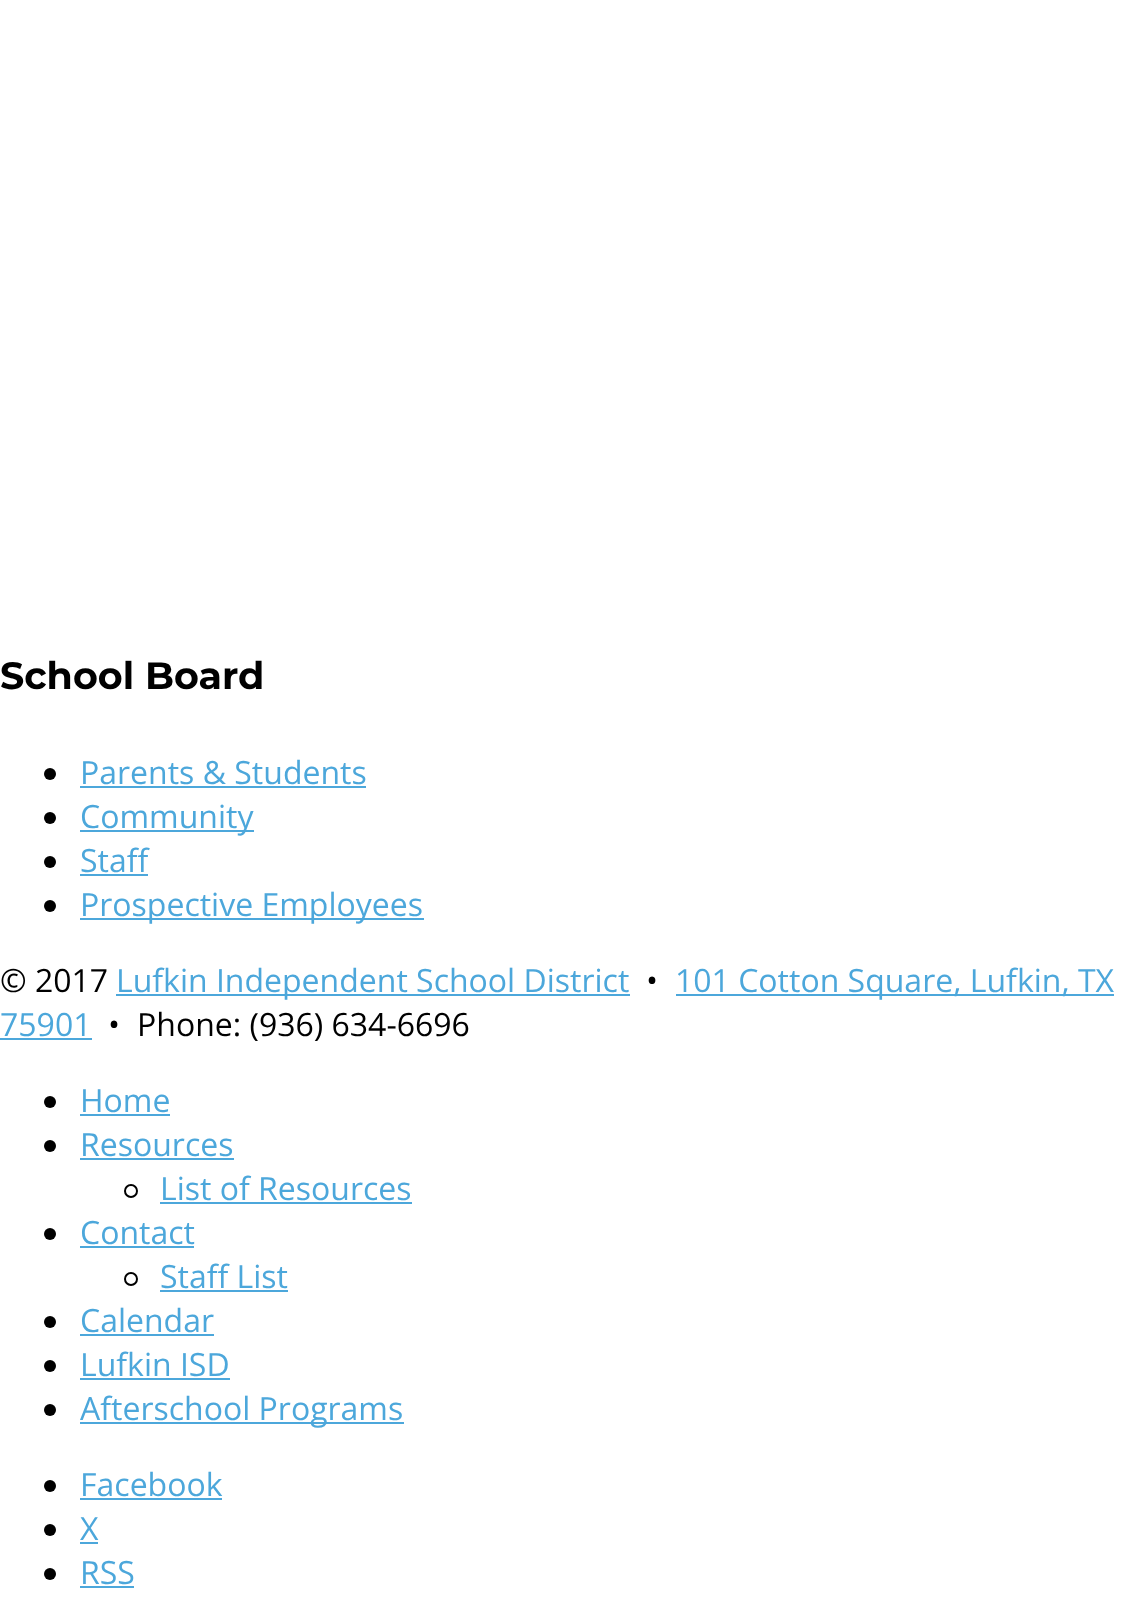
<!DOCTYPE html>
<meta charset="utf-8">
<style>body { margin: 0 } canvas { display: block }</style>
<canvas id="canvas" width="1138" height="1619"></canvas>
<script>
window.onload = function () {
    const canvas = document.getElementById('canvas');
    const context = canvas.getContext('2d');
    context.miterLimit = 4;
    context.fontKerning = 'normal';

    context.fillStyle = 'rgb(255, 255, 255)';
    context.fillRect(0, 0, 1138, 1619);
    context.fillStyle = 'rgb(0, 0, 0)';
    context.beginPath();
    context.arc(50, 774, 6, 0, 2 * Math.PI);
    context.fill();
    context.fillStyle = 'rgb(76, 167, 219)';
    context.fillRect(80, 786, 286, 2);
    context.fillStyle = 'rgb(0, 0, 0)';
    context.beginPath();
    context.arc(50, 818, 6, 0, 2 * Math.PI);
    context.fill();
    context.fillStyle = 'rgb(76, 167, 219)';
    context.fillRect(80, 830, 174, 2);
    context.fillStyle = 'rgb(0, 0, 0)';
    context.beginPath();
    context.arc(50, 862, 6, 0, 2 * Math.PI);
    context.fill();
    context.fillStyle = 'rgb(76, 167, 219)';
    context.fillRect(80, 874, 68, 2);
    context.fillStyle = 'rgb(0, 0, 0)';
    context.beginPath();
    context.arc(50, 906, 6, 0, 2 * Math.PI);
    context.fill();
    context.fillStyle = 'rgb(76, 167, 219)';
    context.fillRect(80, 918, 344, 2);
    context.fillRect(116, 994, 514, 2);
    context.fillRect(676, 994, 438, 2);
    context.fillRect(0, 1038, 92, 2);
    context.fillStyle = 'rgb(0, 0, 0)';
    context.beginPath();
    context.arc(50, 1102, 6, 0, 2 * Math.PI);
    context.fill();
    context.fillStyle = 'rgb(76, 167, 219)';
    context.fillRect(80, 1114, 90, 2);
    context.fillStyle = 'rgb(0, 0, 0)';
    context.beginPath();
    context.arc(50, 1146, 6, 0, 2 * Math.PI);
    context.fill();
    context.fillStyle = 'rgb(76, 167, 219)';
    context.fillRect(80, 1158, 154, 2);
    context.beginPath();
    context.arc(131, 1191, 6, 0, 2 * Math.PI);
    context.strokeStyle = 'rgb(0, 0, 0)';
    context.lineWidth = 2;
    context.stroke();
    context.fillRect(160, 1202, 252, 2);
    context.fillStyle = 'rgb(0, 0, 0)';
    context.beginPath();
    context.arc(50, 1234, 6, 0, 2 * Math.PI);
    context.fill();
    context.fillStyle = 'rgb(76, 167, 219)';
    context.fillRect(80, 1246, 114, 2);
    context.beginPath();
    context.arc(131, 1279, 6, 0, 2 * Math.PI);
    context.stroke();
    context.fillRect(160, 1290, 128, 2);
    context.fillStyle = 'rgb(0, 0, 0)';
    context.beginPath();
    context.arc(50, 1322, 6, 0, 2 * Math.PI);
    context.fill();
    context.fillStyle = 'rgb(76, 167, 219)';
    context.fillRect(80, 1334, 134, 2);
    context.fillStyle = 'rgb(0, 0, 0)';
    context.beginPath();
    context.arc(50, 1366, 6, 0, 2 * Math.PI);
    context.fill();
    context.fillStyle = 'rgb(76, 167, 219)';
    context.fillRect(80, 1378, 150, 2);
    context.fillStyle = 'rgb(0, 0, 0)';
    context.beginPath();
    context.arc(50, 1410, 6, 0, 2 * Math.PI);
    context.fill();
    context.fillStyle = 'rgb(76, 167, 219)';
    context.fillRect(80, 1422, 324, 2);
    context.fillStyle = 'rgb(0, 0, 0)';
    context.beginPath();
    context.arc(50, 1486, 6, 0, 2 * Math.PI);
    context.fill();
    context.fillStyle = 'rgb(76, 167, 219)';
    context.fillRect(80, 1498, 142, 2);
    context.fillStyle = 'rgb(0, 0, 0)';
    context.beginPath();
    context.arc(50, 1530, 6, 0, 2 * Math.PI);
    context.fill();
    context.fillStyle = 'rgb(76, 167, 219)';
    context.fillRect(80, 1542, 18, 2);
    context.fillStyle = 'rgb(0, 0, 0)';
    context.beginPath();
    context.arc(50, 1574, 6, 0, 2 * Math.PI);
    context.fill();
    context.fillStyle = 'rgb(76, 167, 219)';
    context.fillRect(80, 1586, 54, 2);
    context.font = 'bold 38px Montserrat';
    context.fillStyle = 'rgb(0, 0, 0)';
    context.fillText('School Board', 0, 689);
    context.font = '32px Open Sans';
    context.fillStyle = 'rgb(76, 167, 219)';
    context.fillText('Parents & Students', 80, 784);
    context.fillText('Community', 80, 828);
    context.fillText('Staff', 80, 872);
    context.fillText('Prospective Employees', 80, 916);
    context.fillStyle = 'rgb(0, 0, 0)';
    context.fillText('© 2017', 0, 992);
    context.fillStyle = 'rgb(76, 167, 219)';
    context.fillText('Lufkin Independent School District', 116, 992);
    context.fillStyle = 'rgb(0, 0, 0)';
    context.fillText('•', 646, 992);
    context.fillStyle = 'rgb(76, 167, 219)';
    context.fillText('101 Cotton Square, Lufkin, TX', 675, 992);
    context.fillText('75901', 0, 1036);
    context.fillStyle = 'rgb(0, 0, 0)';
    context.fillText('•', 108, 1036);
    context.fillText('Phone: (936) 634-6696', 137, 1036);
    context.fillStyle = 'rgb(76, 167, 219)';
    context.fillText('Home', 80, 1112);
    context.fillText('Resources', 80, 1156);
    context.fillText('List of Resources', 160, 1200);
    context.fillText('Contact', 80, 1244);
    context.fillText('Staff List', 160, 1288);
    context.fillText('Calendar', 80, 1332);
    context.fillText('Lufkin ISD', 80, 1376);
    context.fillText('Afterschool Programs', 80, 1420);
    context.fillText('Facebook', 80, 1496);
    context.fillText('X', 80, 1540);
    context.fillText('RSS', 80, 1584);
};
</script>
